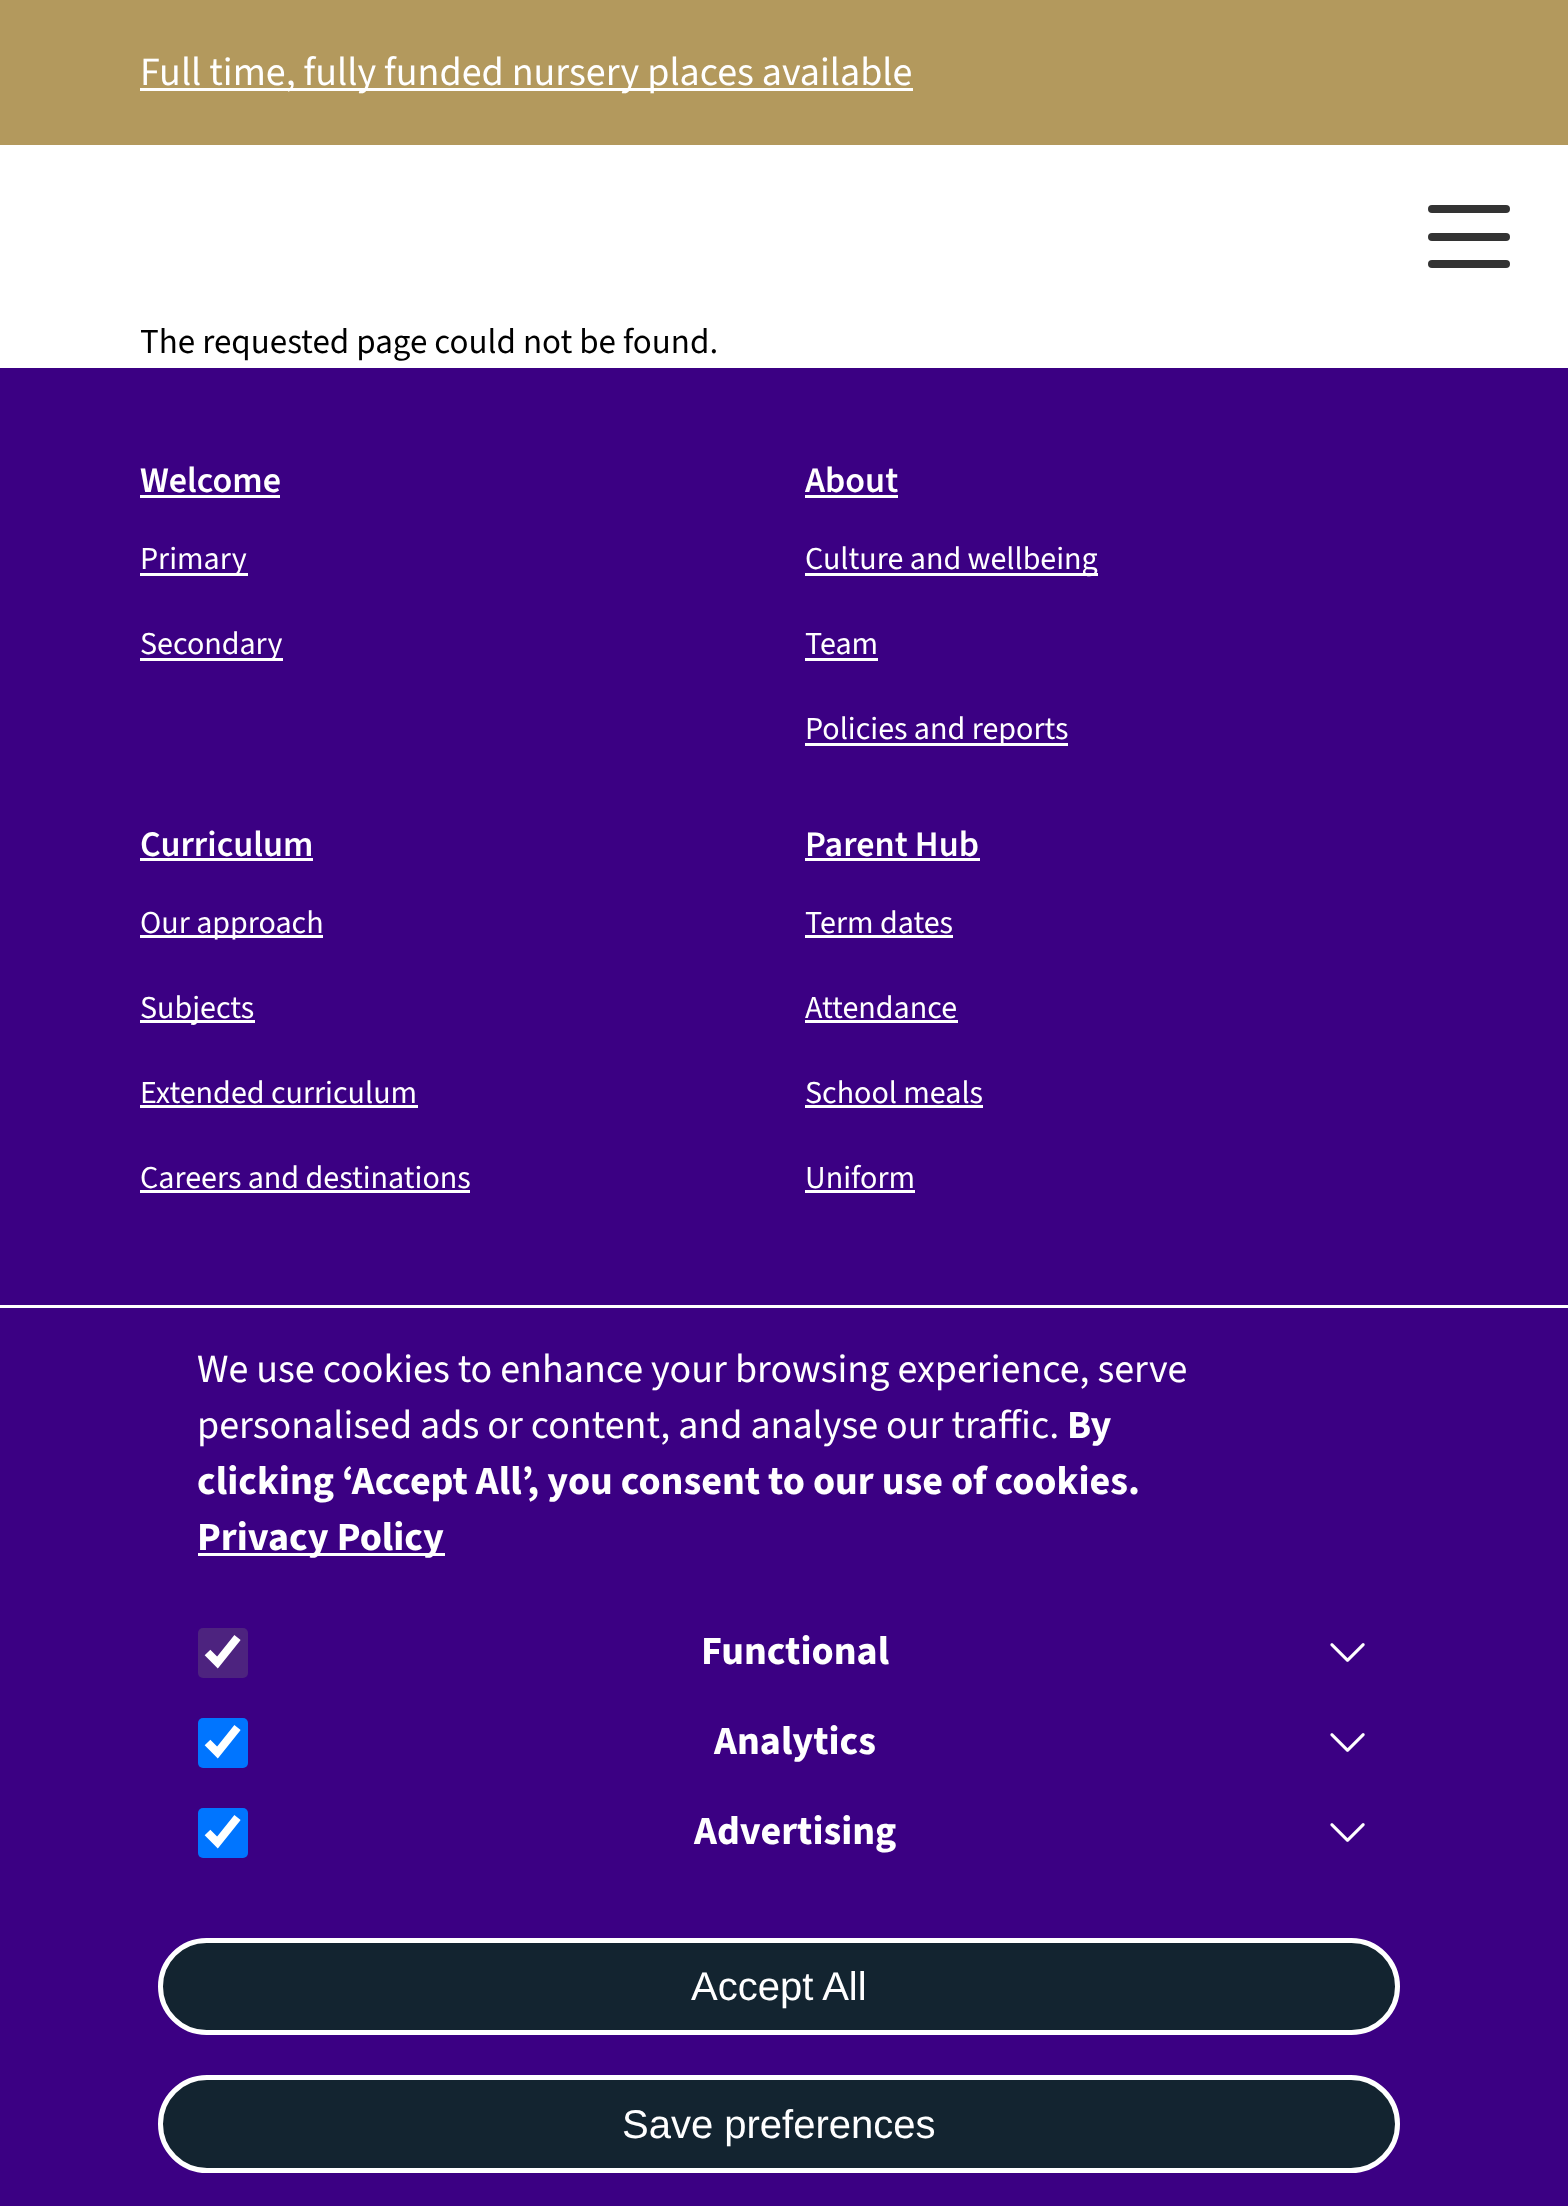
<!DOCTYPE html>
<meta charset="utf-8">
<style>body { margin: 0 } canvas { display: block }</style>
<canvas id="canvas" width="1568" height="2206"></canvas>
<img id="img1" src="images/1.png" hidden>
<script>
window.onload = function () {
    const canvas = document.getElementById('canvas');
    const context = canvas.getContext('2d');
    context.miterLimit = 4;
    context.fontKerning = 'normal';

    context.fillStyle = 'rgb(255, 255, 255)';
    context.fillRect(0, 0, 1568, 2206);
    context.fillStyle = 'rgb(179, 153, 93)';
    context.fillRect(0, 0, 1568, 145);
    context.fillStyle = 'rgb(255, 255, 255)';
    context.fillRect(140, 88, 773, 3);
    context.fillStyle = 'rgb(51, 51, 51)';
    context.beginPath();
    context.roundRect(1428, 205, 82, 8, 4);
    context.fill();
    context.beginPath();
    context.roundRect(1428, 233, 82, 8, 4);
    context.fill();
    context.beginPath();
    context.roundRect(1428, 260, 82, 8, 4);
    context.fill();
    context.fillStyle = 'rgb(59, 0, 131)';
    context.fillRect(0, 368, 1568, 937);
    context.fillStyle = 'rgb(255, 255, 255)';
    context.fillRect(140, 495, 140, 3);
    context.fillRect(140, 573, 108, 3);
    context.fillRect(140, 658, 143, 3);
    context.fillRect(805, 495, 93, 3);
    context.fillRect(805, 573, 293, 3);
    context.fillRect(805, 658, 73, 3);
    context.fillRect(805, 743, 263, 3);
    context.fillRect(140, 858, 173, 3);
    context.fillRect(140, 935, 183, 3);
    context.fillRect(140, 1020, 115, 3);
    context.fillRect(140, 1105, 278, 3);
    context.fillRect(140, 1190, 330, 3);
    context.fillRect(805, 858, 175, 3);
    context.fillRect(805, 935, 148, 3);
    context.fillRect(805, 1020, 153, 3);
    context.fillRect(805, 1105, 178, 3);
    context.fillRect(805, 1190, 110, 3);
    context.fillStyle = 'rgb(59, 0, 131)';
    context.fillRect(0, 1308, 1568, 898);
    context.fillStyle = 'rgb(255, 255, 255)';
    context.fillRect(198, 1553, 247, 3);
    context.fillStyle = 'rgb(77, 35, 127)';
    context.beginPath();
    context.roundRect(198, 1628, 50, 50, 5);
    context.fill();
    context.beginPath();
    context.moveTo(207.5, 1652.5);
    context.lineTo(217.5, 1662.5);
    context.lineTo(237.5, 1637.5);
    context.strokeStyle = 'rgb(255, 255, 255)';
    context.lineWidth = 8;
    context.stroke();
    context.drawImage(document.getElementById('img1'), 1330, 1643, 35, 19);
    context.fillStyle = 'rgb(0, 117, 255)';
    context.beginPath();
    context.roundRect(198, 1718, 50, 50, 5);
    context.fill();
    context.beginPath();
    context.moveTo(207.5, 1742.5);
    context.lineTo(217.5, 1752.5);
    context.lineTo(237.5, 1727.5);
    context.stroke();
    context.drawImage(document.getElementById('img1'), 1330, 1733, 35, 19);
    context.beginPath();
    context.roundRect(198, 1808, 50, 50, 5);
    context.fill();
    context.beginPath();
    context.moveTo(207.5, 1832.5);
    context.lineTo(217.5, 1842.5);
    context.lineTo(237.5, 1817.5);
    context.stroke();
    context.drawImage(document.getElementById('img1'), 1330, 1823, 35, 19);
    context.fillStyle = 'rgb(19, 36, 48)';
    context.beginPath();
    context.roundRect(160.5, 1940.5, 1237, 92, 46);
    context.fill();
    context.lineWidth = 5;
    context.stroke();
    context.beginPath();
    context.roundRect(160.5, 2077.5, 1237, 93, 46.5);
    context.fill();
    context.stroke();
    context.font = '40px "Source Sans 3"';
    context.fillStyle = 'rgb(255, 255, 255)';
    context.fillText('Full time, fully funded nursery places available', 140, 85);
    context.font = '35px "Source Sans 3"';
    context.fillStyle = 'rgb(0, 0, 0)';
    context.fillText('The requested page could not be found.', 140, 353);
    context.font = '600 36px "Source Sans 3"';
    context.fillStyle = 'rgb(255, 255, 255)';
    context.fillText('Welcome', 140, 492);
    context.font = '32px "Source Sans 3"';
    context.fillText('Primary', 140, 569);
    context.fillText('Secondary', 140, 654);
    context.font = '600 36px "Source Sans 3"';
    context.fillText('About', 805, 492);
    context.font = '32px "Source Sans 3"';
    context.fillText('Culture and wellbeing', 805, 569);
    context.fillText('Team', 805, 654);
    context.fillText('Policies and reports', 805, 739);
    context.font = '600 36px "Source Sans 3"';
    context.fillText('Curriculum', 140, 856);
    context.font = '32px "Source Sans 3"';
    context.fillText('Our approach', 140, 933);
    context.fillText('Subjects', 140, 1018);
    context.fillText('Extended curriculum', 140, 1103);
    context.fillText('Careers and destinations', 140, 1188);
    context.font = '600 36px "Source Sans 3"';
    context.fillText('Parent Hub', 805, 856);
    context.font = '32px "Source Sans 3"';
    context.fillText('Term dates', 805, 933);
    context.fillText('Attendance', 805, 1018);
    context.fillText('School meals', 805, 1103);
    context.fillText('Uniform', 805, 1188);
    context.font = '40px "Source Sans 3"';
    context.fillText('We use cookies to enhance your browsing experience, serve', 197, 1382);
    context.fillText('personalised ads or content, and analyse our traffic.', 197, 1438);
    context.font = 'bold 40px "Source Sans 3"';
    context.fillText('By', 1067, 1438);
    context.fillText('clicking ‘Accept All’, you consent to our use of cookies.', 197, 1494);
    context.fillText('Privacy Policy', 197, 1550);
    context.fillText('Functional', 701, 1664);
    context.fillText('Analytics', 714, 1754);
    context.fillText('Advertising', 694, 1844);
    context.font = '40px Liberation Sans';
    context.fillText('Accept All', 691, 2000);
    context.fillText('Save preferences', 622, 2138);
};
</script>
